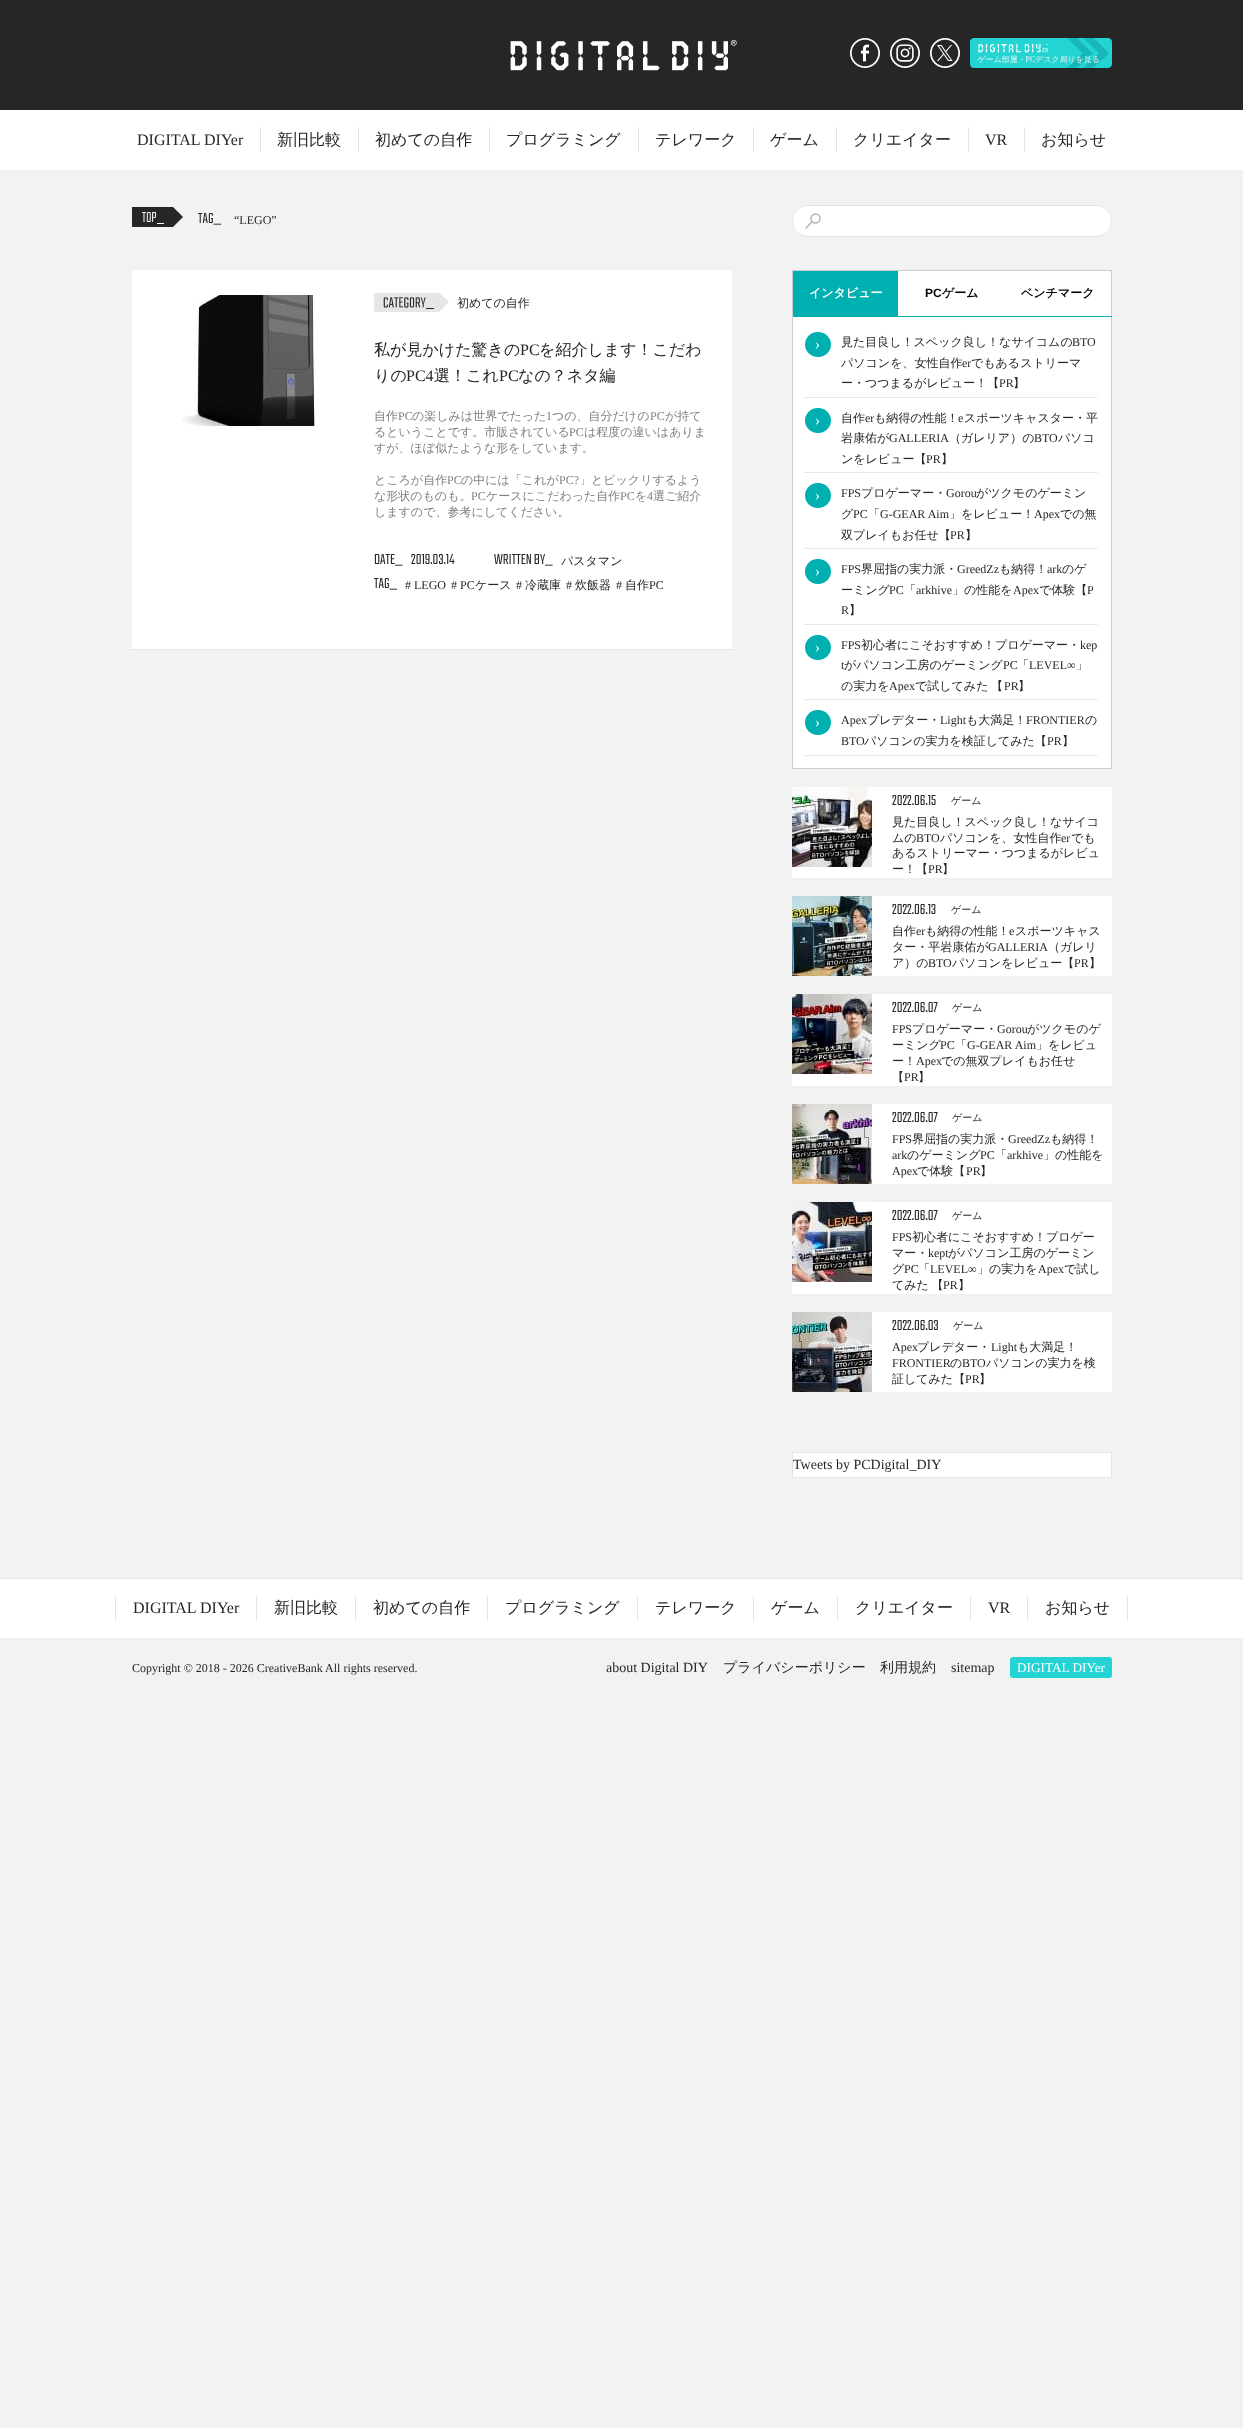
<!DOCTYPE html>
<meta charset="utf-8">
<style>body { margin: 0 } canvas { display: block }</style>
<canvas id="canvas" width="1243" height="2428"></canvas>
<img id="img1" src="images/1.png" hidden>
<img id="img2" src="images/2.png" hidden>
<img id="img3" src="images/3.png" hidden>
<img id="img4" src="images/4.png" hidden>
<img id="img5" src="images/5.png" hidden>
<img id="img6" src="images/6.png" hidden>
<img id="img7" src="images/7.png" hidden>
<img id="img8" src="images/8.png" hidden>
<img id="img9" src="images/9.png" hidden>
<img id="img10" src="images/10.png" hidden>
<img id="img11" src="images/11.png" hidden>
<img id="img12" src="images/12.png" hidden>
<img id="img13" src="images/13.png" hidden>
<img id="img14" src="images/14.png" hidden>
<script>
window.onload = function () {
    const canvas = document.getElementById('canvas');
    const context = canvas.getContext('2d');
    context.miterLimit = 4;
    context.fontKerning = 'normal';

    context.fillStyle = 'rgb(242, 242, 242)';
    context.fillRect(0, 0, 1243, 2428);
    context.fillStyle = 'rgb(38, 38, 38)';
    context.fillRect(0, 0, 1243, 110);
    context.drawImage(document.getElementById('img1'), 510, 39, 227, 32);
    context.drawImage(document.getElementById('img2'), 850, 38, 30, 30);
    context.drawImage(document.getElementById('img3'), 890, 38, 30, 30);
    context.drawImage(document.getElementById('img4'), 930, 38, 30, 30);
    context.drawImage(document.getElementById('img5'), 970, 38, 142, 30);
    context.fillStyle = 'rgb(255, 255, 255)';
    context.fillRect(0, 110, 1243, 60);
    context.fillStyle = 'rgb(229, 229, 229)';
    context.fillRect(260, 127, 1, 25);
    context.fillRect(358, 127, 1, 25);
    context.fillRect(489, 127, 1, 25);
    context.fillRect(638, 127, 1, 25);
    context.fillRect(753, 127, 1, 25);
    context.fillRect(836, 127, 1, 25);
    context.fillRect(968, 127, 1, 25);
    context.fillRect(1024, 127, 1, 25);
    context.drawImage(document.getElementById('img6'), 132, 207, 51, 20);
    context.fillStyle = 'rgb(255, 255, 255)';
    context.fillRect(132, 270, 600, 379);
    context.fillStyle = 'rgb(229, 229, 229)';
    context.fillRect(132, 649, 600, 1);
    context.drawImage(document.getElementById('img7'), 181, 295, 134, 131);
    context.drawImage(document.getElementById('img8'), 374, 293, 75, 19);
    context.fillStyle = 'rgb(255, 255, 255)';
    context.beginPath();
    context.roundRect(792, 205, 320, 32, 16);
    context.fill();
    context.beginPath();
    context.arc(815.5, 218.5, 4.5, 0, 2 * Math.PI);
    context.strokeStyle = 'rgb(179, 179, 179)';
    context.lineWidth = 1.5;
    context.stroke();
    context.beginPath();
    context.moveTo(812, 222);
    context.lineTo(805.5, 228.5);
    context.stroke();
    context.beginPath();
    context.roundRect(792.5, 205.5, 319, 31, 15.5);
    context.strokeStyle = 'rgb(229, 229, 229)';
    context.lineWidth = 1;
    context.stroke();
    context.fillRect(898, 271, 213, 45);
    context.fillStyle = 'rgb(204, 204, 204)';
    context.fillRect(792, 270, 320, 1);
    context.fillRect(1111, 270, 1, 47);
    context.fillStyle = 'rgb(0, 176, 176)';
    context.fillRect(792, 316, 320, 1);
    context.fillStyle = 'rgb(204, 204, 204)';
    context.fillRect(792, 270, 1, 47);
    context.fillStyle = 'rgb(0, 176, 176)';
    context.fillRect(793, 271, 105, 45);
    context.fillStyle = 'rgb(255, 255, 255)';
    context.fillRect(793, 317, 318, 451);
    context.fillStyle = 'rgb(204, 204, 204)';
    context.fillRect(1111, 317, 1, 452);
    context.fillRect(792, 768, 320, 1);
    context.fillRect(792, 317, 1, 452);
    context.beginPath();
    context.moveTo(805, 397.5);
    context.lineTo(1099, 397.5);
    context.strokeStyle = 'rgb(211, 211, 211)';
    context.setLineDash([1, 1]);
    context.stroke();
    context.fillStyle = 'rgb(0, 176, 176)';
    context.beginPath();
    context.roundRect(805, 332, 26, 25, 12.5);
    context.fill();
    context.beginPath();
    context.moveTo(805, 472.5);
    context.lineTo(1099, 472.5);
    context.stroke();
    context.beginPath();
    context.roundRect(805, 408, 26, 25, 12.5);
    context.fill();
    context.beginPath();
    context.moveTo(805, 548.5);
    context.lineTo(1099, 548.5);
    context.stroke();
    context.beginPath();
    context.roundRect(805, 483, 26, 25, 12.5);
    context.fill();
    context.beginPath();
    context.moveTo(805, 624.5);
    context.lineTo(1099, 624.5);
    context.stroke();
    context.beginPath();
    context.roundRect(805, 559, 26, 25, 12.5);
    context.fill();
    context.beginPath();
    context.moveTo(805, 699.5);
    context.lineTo(1099, 699.5);
    context.stroke();
    context.beginPath();
    context.roundRect(805, 635, 26, 25, 12.5);
    context.fill();
    context.beginPath();
    context.moveTo(805, 755.5);
    context.lineTo(1099, 755.5);
    context.stroke();
    context.beginPath();
    context.roundRect(805, 710, 26, 25, 12.5);
    context.fill();
    context.fillStyle = 'rgb(255, 255, 255)';
    context.fillRect(792, 787, 320, 91);
    context.drawImage(document.getElementById('img9'), 792, 787, 80, 80);
    context.fillRect(872, 896, 240, 80);
    context.drawImage(document.getElementById('img10'), 792, 896, 80, 80);
    context.fillRect(792, 994, 320, 92);
    context.drawImage(document.getElementById('img11'), 792, 994, 80, 80);
    context.fillRect(872, 1104, 240, 80);
    context.drawImage(document.getElementById('img12'), 792, 1104, 80, 80);
    context.fillRect(792, 1202, 320, 92);
    context.drawImage(document.getElementById('img13'), 792, 1202, 80, 80);
    context.fillRect(872, 1312, 240, 80);
    context.drawImage(document.getElementById('img14'), 792, 1312, 80, 80);
    context.beginPath();
    context.rect(792.5, 1452.5, 319, 25);
    context.fill();
    context.strokeStyle = 'rgb(229, 229, 229)';
    context.setLineDash([]);
    context.stroke();
    context.fillRect(0, 1579, 1243, 59);
    context.fillStyle = 'rgb(229, 229, 229)';
    context.fillRect(0, 1578, 1243, 1);
    context.fillRect(115, 1596, 1, 25);
    context.fillRect(256, 1596, 1, 25);
    context.fillRect(355, 1596, 1, 25);
    context.fillRect(487, 1596, 1, 25);
    context.fillRect(637, 1596, 1, 25);
    context.fillRect(753, 1596, 1, 25);
    context.fillRect(837, 1596, 1, 25);
    context.fillRect(970, 1596, 1, 25);
    context.fillRect(1127, 1596, 1, 25);
    context.fillRect(1027, 1596, 1, 25);
    context.fillStyle = 'rgb(36, 212, 212)';
    context.beginPath();
    context.roundRect(1010, 1657, 102, 21, 3);
    context.fill();
    context.font = '16px Liberation Serif';
    context.fillStyle = 'rgb(38, 38, 38)';
    context.fillText('DIGITAL DIYer', 137, 145);
    context.font = '500 16px WenQuanYi Zen Hei';
    context.fillText('新旧比較', 277, 145);
    context.fillText('初めての自作', 375, 145);
    context.fillText('プログラミング', 506, 145);
    context.fillText('テレワーク', 655, 145);
    context.fillText('ゲーム', 770, 145);
    context.fillText('クリエイター', 853, 145);
    context.font = '16px Liberation Serif';
    context.fillText('VR', 985, 145);
    context.font = '500 16px WenQuanYi Zen Hei';
    context.fillText('お知らせ', 1041, 145);
    context.font = '300 16px Teko';
    context.fillText('TAG_', 198, 223);
    context.font = '12px Liberation Serif';
    context.fillText('“LEGO”', 234, 224);
    context.font = '500 12px WenQuanYi Zen Hei';
    context.fillText('初めての自作', 457, 307);
    context.font = '500 16px WenQuanYi Zen Hei';
    context.fillText('私が見かけた驚きの', 374, 355);
    context.font = '16px Liberation Serif';
    context.fillText('PC', 520, 355);
    context.font = '500 16px WenQuanYi Zen Hei';
    context.fillText('を紹介します！こだわ', 539, 355);
    context.fillText('りの', 374, 381);
    context.font = '16px Liberation Serif';
    context.fillText('PC4', 406, 381);
    context.font = '500 16px WenQuanYi Zen Hei';
    context.fillText('選！これ', 434, 381);
    context.font = '16px Liberation Serif';
    context.fillText('PC', 499, 381);
    context.font = '500 16px WenQuanYi Zen Hei';
    context.fillText('なの？ネタ編', 518, 381);
    context.font = '500 12px WenQuanYi Zen Hei';
    context.fillStyle = 'rgb(128, 128, 128)';
    context.fillText('自作', 374, 420);
    context.font = '12px Liberation Serif';
    context.fillText('PC', 398, 420);
    context.font = '500 12px WenQuanYi Zen Hei';
    context.fillText('の楽しみは世界でたった', 412, 420);
    context.font = '12px Liberation Serif';
    context.fillText('1', 546, 420);
    context.font = '500 12px WenQuanYi Zen Hei';
    context.fillText('つの、自分だけの', 552, 420);
    context.font = '12px Liberation Serif';
    context.fillText('PC', 650, 420);
    context.font = '500 12px WenQuanYi Zen Hei';
    context.fillText('が持て', 665, 420);
    context.fillText('るということです。市販されている', 374, 436);
    context.font = '12px Liberation Serif';
    context.fillText('PC', 569, 436);
    context.font = '500 12px WenQuanYi Zen Hei';
    context.fillText('は程度の違いはありま', 584, 436);
    context.fillText('すが、ほぼ似たような形をしています。', 374, 452);
    context.fillText('ところが自作', 374, 484);
    context.font = '12px Liberation Serif';
    context.fillText('PC', 447, 484);
    context.font = '500 12px WenQuanYi Zen Hei';
    context.fillText('の中には「これが', 461, 484);
    context.font = '12px Liberation Serif';
    context.fillText('PC?', 559, 484);
    context.font = '500 12px WenQuanYi Zen Hei';
    context.fillText('」とビックリするよう', 579, 484);
    context.fillText('な形状のものも。', 374, 500);
    context.font = '12px Liberation Serif';
    context.fillText('PC', 471, 500);
    context.font = '500 12px WenQuanYi Zen Hei';
    context.fillText('ケースにこだわった自作', 486, 500);
    context.font = '12px Liberation Serif';
    context.fillText('PC', 620, 500);
    context.font = '500 12px WenQuanYi Zen Hei';
    context.fillText('を', 635, 500);
    context.font = '12px Liberation Serif';
    context.fillText('4', 647, 500);
    context.font = '500 12px WenQuanYi Zen Hei';
    context.fillText('選ご紹介', 653, 500);
    context.fillText('しますので、参考にしてください。', 374, 516);
    context.font = '300 16px Teko';
    context.fillStyle = 'rgb(38, 38, 38)';
    context.fillText('DATE_', 374, 564);
    context.fillText('2019.03.14', 411, 564);
    context.fillText('WRITTEN BY_', 494, 564);
    context.font = '500 12px WenQuanYi Zen Hei';
    context.fillText('パスタマン', 561, 565);
    context.font = '300 16px Teko';
    context.fillText('TAG_', 374, 588);
    context.font = '12px Liberation Serif';
    context.fillText('# LEGO', 405, 589);
    context.fillText('# PC', 451, 589);
    context.font = '500 12px WenQuanYi Zen Hei';
    context.fillText('ケース', 475, 589);
    context.font = '12px Liberation Serif';
    context.fillText('#', 516, 589);
    context.font = '500 12px WenQuanYi Zen Hei';
    context.fillText('冷蔵庫', 525, 589);
    context.font = '12px Liberation Serif';
    context.fillText('#', 566, 589);
    context.font = '500 12px WenQuanYi Zen Hei';
    context.fillText('炊飯器', 575, 589);
    context.font = '12px Liberation Serif';
    context.fillText('#', 616, 589);
    context.font = '500 12px WenQuanYi Zen Hei';
    context.fillText('自作', 625, 589);
    context.font = '12px Liberation Serif';
    context.fillText('PC', 649, 589);
    context.font = 'bold 12px WenQuanYi Zen Hei';
    context.fillStyle = 'rgb(255, 255, 255)';
    context.fillText('インタビュー', 809, 297);
    context.font = 'bold 12px Liberation Sans';
    context.fillStyle = 'rgb(0, 0, 0)';
    context.fillText('PC', 925, 297);
    context.font = 'bold 12px WenQuanYi Zen Hei';
    context.fillText('ゲーム', 942, 297);
    context.fillText('ベンチマーク', 1021, 297);
    context.font = '15px Liberation Serif';
    context.fillStyle = 'rgb(255, 255, 255)';
    context.fillText('›', 815, 349);
    context.font = '500 12px WenQuanYi Zen Hei';
    context.fillStyle = 'rgb(38, 38, 38)';
    context.fillText('見た目良し！スペック良し！なサイコムの', 841, 346);
    context.font = '12px Liberation Serif';
    context.fillText('BTO', 1072, 346);
    context.font = '500 12px WenQuanYi Zen Hei';
    context.fillText('パソコンを、女性自作', 841, 367);
    context.font = '12px Liberation Serif';
    context.fillText('er', 962, 367);
    context.font = '500 12px WenQuanYi Zen Hei';
    context.fillText('でもあるストリーマ', 971, 367);
    context.fillText('ー・つつまるがレビュー！【', 841, 387);
    context.font = '12px Liberation Serif';
    context.fillText('PR', 999, 387);
    context.font = '500 12px WenQuanYi Zen Hei';
    context.fillText('】', 1013, 387);
    context.font = '15px Liberation Serif';
    context.fillStyle = 'rgb(255, 255, 255)';
    context.fillText('›', 815, 425);
    context.font = '500 12px WenQuanYi Zen Hei';
    context.fillStyle = 'rgb(38, 38, 38)';
    context.fillText('自作', 841, 422);
    context.font = '12px Liberation Serif';
    context.fillText('er', 865, 422);
    context.font = '500 12px WenQuanYi Zen Hei';
    context.fillText('も納得の性能！', 874, 422);
    context.font = '12px Liberation Serif';
    context.fillText('e', 958, 422);
    context.font = '500 12px WenQuanYi Zen Hei';
    context.fillText('スポーツキャスター・平', 964, 422);
    context.fillText('岩康佑が', 841, 442);
    context.font = '12px Liberation Serif';
    context.fillText('GALLERIA', 889, 442);
    context.font = '500 12px WenQuanYi Zen Hei';
    context.fillText('（ガレリア）の', 949, 442);
    context.font = '12px Liberation Serif';
    context.fillText('BTO', 1034, 442);
    context.font = '500 12px WenQuanYi Zen Hei';
    context.fillText('パソコ', 1058, 442);
    context.fillText('ンをレビュー【', 841, 463);
    context.font = '12px Liberation Serif';
    context.fillText('PR', 926, 463);
    context.font = '500 12px WenQuanYi Zen Hei';
    context.fillText('】', 941, 463);
    context.font = '15px Liberation Serif';
    context.fillStyle = 'rgb(255, 255, 255)';
    context.fillText('›', 815, 500);
    context.font = '12px Liberation Serif';
    context.fillStyle = 'rgb(38, 38, 38)';
    context.fillText('FPS', 841, 497);
    context.font = '500 12px WenQuanYi Zen Hei';
    context.fillText('プロゲーマー・', 861, 497);
    context.font = '12px Liberation Serif';
    context.fillText('Gorou', 946, 497);
    context.font = '500 12px WenQuanYi Zen Hei';
    context.fillText('がツクモのゲーミン', 976, 497);
    context.fillText('グ', 841, 518);
    context.font = '12px Liberation Serif';
    context.fillText('PC', 853, 518);
    context.font = '500 12px WenQuanYi Zen Hei';
    context.fillText('「', 868, 518);
    context.font = '12px Liberation Serif';
    context.fillText('G-GEAR Aim', 880, 518);
    context.font = '500 12px WenQuanYi Zen Hei';
    context.fillText('」をレビュー！', 949, 518);
    context.font = '12px Liberation Serif';
    context.fillText('Apex', 1034, 518);
    context.font = '500 12px WenQuanYi Zen Hei';
    context.fillText('での無', 1060, 518);
    context.fillText('双プレイもお任せ【', 841, 539);
    context.font = '12px Liberation Serif';
    context.fillText('PR', 950, 539);
    context.font = '500 12px WenQuanYi Zen Hei';
    context.fillText('】', 965, 539);
    context.font = '15px Liberation Serif';
    context.fillStyle = 'rgb(255, 255, 255)';
    context.fillText('›', 815, 576);
    context.font = '12px Liberation Serif';
    context.fillStyle = 'rgb(38, 38, 38)';
    context.fillText('FPS', 841, 573);
    context.font = '500 12px WenQuanYi Zen Hei';
    context.fillText('界屈指の実力派・', 861, 573);
    context.font = '12px Liberation Serif';
    context.fillText('GreedZz', 957, 573);
    context.font = '500 12px WenQuanYi Zen Hei';
    context.fillText('も納得！', 999, 573);
    context.font = '12px Liberation Serif';
    context.fillText('ark', 1047, 573);
    context.font = '500 12px WenQuanYi Zen Hei';
    context.fillText('のゲ', 1062, 573);
    context.fillText('ーミング', 841, 594);
    context.font = '12px Liberation Serif';
    context.fillText('PC', 889, 594);
    context.font = '500 12px WenQuanYi Zen Hei';
    context.fillText('「', 904, 594);
    context.font = '12px Liberation Serif';
    context.fillText('arkhive', 916, 594);
    context.font = '500 12px WenQuanYi Zen Hei';
    context.fillText('」の性能を', 952, 594);
    context.font = '12px Liberation Serif';
    context.fillText('Apex', 1013, 594);
    context.font = '500 12px WenQuanYi Zen Hei';
    context.fillText('で体験【', 1039, 594);
    context.font = '12px Liberation Serif';
    context.fillText('P', 1087, 594);
    context.fillText('R', 841, 614);
    context.font = '500 12px WenQuanYi Zen Hei';
    context.fillText('】', 849, 614);
    context.font = '15px Liberation Serif';
    context.fillStyle = 'rgb(255, 255, 255)';
    context.fillText('›', 815, 652);
    context.font = '12px Liberation Serif';
    context.fillStyle = 'rgb(38, 38, 38)';
    context.fillText('FPS', 841, 649);
    context.font = '500 12px WenQuanYi Zen Hei';
    context.fillText('初心者にこそおすすめ！プロゲーマー・', 861, 649);
    context.font = '12px Liberation Serif';
    context.fillText('kep', 1080, 649);
    context.fillText('t', 841, 669);
    context.font = '500 12px WenQuanYi Zen Hei';
    context.fillText('がパソコン工房のゲーミング', 844, 669);
    context.font = '12px Liberation Serif';
    context.fillText('PC', 1003, 669);
    context.font = '500 12px WenQuanYi Zen Hei';
    context.fillText('「', 1017, 669);
    context.font = '12px Liberation Serif';
    context.fillText('LEVEL∞', 1029, 669);
    context.font = '500 12px WenQuanYi Zen Hei';
    context.fillText('」', 1076, 669);
    context.fillText('の実力を', 841, 690);
    context.font = '12px Liberation Serif';
    context.fillText('Apex', 889, 690);
    context.wordSpacing = '-1px';
    context.font = '500 12px WenQuanYi Zen Hei';
    context.fillText('で試してみた 【', 915, 690);
    context.wordSpacing = '0px';
    context.font = '12px Liberation Serif';
    context.fillText('PR', 1004, 690);
    context.font = '500 12px WenQuanYi Zen Hei';
    context.fillText('】', 1018, 690);
    context.font = '15px Liberation Serif';
    context.fillStyle = 'rgb(255, 255, 255)';
    context.fillText('›', 815, 727);
    context.font = '12px Liberation Serif';
    context.fillStyle = 'rgb(38, 38, 38)';
    context.fillText('Apex', 841, 724);
    context.font = '500 12px WenQuanYi Zen Hei';
    context.fillText('プレデター・', 867, 724);
    context.font = '12px Liberation Serif';
    context.fillText('Light', 940, 724);
    context.font = '500 12px WenQuanYi Zen Hei';
    context.fillText('も大満足！', 966, 724);
    context.font = '12px Liberation Serif';
    context.fillText('FRONTIER', 1026, 724);
    context.font = '500 12px WenQuanYi Zen Hei';
    context.fillText('の', 1085, 724);
    context.font = '12px Liberation Serif';
    context.fillText('BTO', 841, 745);
    context.font = '500 12px WenQuanYi Zen Hei';
    context.fillText('パソコンの実力を検証してみた【', 864, 745);
    context.font = '12px Liberation Serif';
    context.fillText('PR', 1047, 745);
    context.font = '500 12px WenQuanYi Zen Hei';
    context.fillText('】', 1062, 745);
    context.save();
    context.beginPath();
    context.rect(892, 787, 215, 91);
    context.clip();
    context.font = '300 16px Teko';
    context.fillText('2022.06.15', 892, 805);
    context.restore();
    context.font = '500 10px WenQuanYi Zen Hei';
    context.fillText('ゲーム', 951, 804);
    context.font = '500 12px WenQuanYi Zen Hei';
    context.fillText('見た目良し！スペック良し！なサイコ', 892, 826);
    context.fillText('ムの', 892, 842);
    context.font = '12px Liberation Serif';
    context.fillText('BTO', 916, 842);
    context.font = '500 12px WenQuanYi Zen Hei';
    context.fillText('パソコンを、女性自作', 940, 842);
    context.font = '12px Liberation Serif';
    context.fillText('er', 1061, 842);
    context.font = '500 12px WenQuanYi Zen Hei';
    context.fillText('でも', 1071, 842);
    context.fillText('あるストリーマー・つつまるがレビュ', 892, 857);
    context.fillText('ー！【', 892, 873);
    context.font = '12px Liberation Serif';
    context.fillText('PR', 928, 873);
    context.font = '500 12px WenQuanYi Zen Hei';
    context.fillText('】', 942, 873);
    context.save();
    context.beginPath();
    context.rect(892, 896, 215, 76);
    context.clip();
    context.font = '300 16px Teko';
    context.fillText('2022.06.13', 892, 914);
    context.restore();
    context.font = '500 10px WenQuanYi Zen Hei';
    context.fillText('ゲーム', 951, 913);
    context.font = '500 12px WenQuanYi Zen Hei';
    context.fillText('自作', 892, 935);
    context.font = '12px Liberation Serif';
    context.fillText('er', 916, 935);
    context.font = '500 12px WenQuanYi Zen Hei';
    context.fillText('も納得の性能！', 925, 935);
    context.font = '12px Liberation Serif';
    context.fillText('e', 1009, 935);
    context.font = '500 12px WenQuanYi Zen Hei';
    context.fillText('スポーツキャス', 1015, 935);
    context.fillText('ター・平岩康佑が', 892, 951);
    context.font = '12px Liberation Serif';
    context.fillText('GALLERIA', 988, 951);
    context.font = '500 12px WenQuanYi Zen Hei';
    context.fillText('（ガレリ', 1048, 951);
    context.fillText('ア）の', 892, 967);
    context.font = '12px Liberation Serif';
    context.fillText('BTO', 928, 967);
    context.font = '500 12px WenQuanYi Zen Hei';
    context.fillText('パソコンをレビュー【', 952, 967);
    context.font = '12px Liberation Serif';
    context.fillText('PR', 1074, 967);
    context.font = '500 12px WenQuanYi Zen Hei';
    context.fillText('】', 1089, 967);
    context.save();
    context.beginPath();
    context.rect(892, 994, 215, 92);
    context.clip();
    context.font = '300 16px Teko';
    context.fillText('2022.06.07', 892, 1012);
    context.restore();
    context.font = '500 10px WenQuanYi Zen Hei';
    context.fillText('ゲーム', 952, 1011);
    context.font = '12px Liberation Serif';
    context.fillText('FPS', 892, 1033);
    context.font = '500 12px WenQuanYi Zen Hei';
    context.fillText('プロゲーマー・', 912, 1033);
    context.font = '12px Liberation Serif';
    context.fillText('Gorou', 997, 1033);
    context.font = '500 12px WenQuanYi Zen Hei';
    context.fillText('がツクモのゲ', 1027, 1033);
    context.fillText('ーミング', 892, 1049);
    context.font = '12px Liberation Serif';
    context.fillText('PC', 940, 1049);
    context.font = '500 12px WenQuanYi Zen Hei';
    context.fillText('「', 955, 1049);
    context.font = '12px Liberation Serif';
    context.fillText('G-GEAR Aim', 967, 1049);
    context.font = '500 12px WenQuanYi Zen Hei';
    context.fillText('」をレビュ', 1036, 1049);
    context.fillText('ー！', 892, 1065);
    context.font = '12px Liberation Serif';
    context.fillText('Apex', 916, 1065);
    context.font = '500 12px WenQuanYi Zen Hei';
    context.fillText('での無双プレイもお任せ', 941, 1065);
    context.fillText('【', 892, 1081);
    context.font = '12px Liberation Serif';
    context.fillText('PR', 904, 1081);
    context.font = '500 12px WenQuanYi Zen Hei';
    context.fillText('】', 918, 1081);
    context.save();
    context.beginPath();
    context.rect(892, 1104, 215, 76);
    context.clip();
    context.font = '300 16px Teko';
    context.fillText('2022.06.07', 892, 1122);
    context.restore();
    context.font = '500 10px WenQuanYi Zen Hei';
    context.fillText('ゲーム', 952, 1121);
    context.font = '12px Liberation Serif';
    context.fillText('FPS', 892, 1143);
    context.font = '500 12px WenQuanYi Zen Hei';
    context.fillText('界屈指の実力派・', 912, 1143);
    context.font = '12px Liberation Serif';
    context.fillText('GreedZz', 1008, 1143);
    context.font = '500 12px WenQuanYi Zen Hei';
    context.fillText('も納得！', 1050, 1143);
    context.font = '12px Liberation Serif';
    context.fillText('ark', 892, 1159);
    context.font = '500 12px WenQuanYi Zen Hei';
    context.fillText('のゲーミング', 907, 1159);
    context.font = '12px Liberation Serif';
    context.fillText('PC', 980, 1159);
    context.font = '500 12px WenQuanYi Zen Hei';
    context.fillText('「', 995, 1159);
    context.font = '12px Liberation Serif';
    context.fillText('arkhive', 1007, 1159);
    context.font = '500 12px WenQuanYi Zen Hei';
    context.fillText('」の性能を', 1043, 1159);
    context.font = '12px Liberation Serif';
    context.fillText('Apex', 892, 1175);
    context.font = '500 12px WenQuanYi Zen Hei';
    context.fillText('で体験【', 917, 1175);
    context.font = '12px Liberation Serif';
    context.fillText('PR', 966, 1175);
    context.font = '500 12px WenQuanYi Zen Hei';
    context.fillText('】', 980, 1175);
    context.save();
    context.beginPath();
    context.rect(892, 1202, 215, 92);
    context.clip();
    context.font = '300 16px Teko';
    context.fillText('2022.06.07', 892, 1220);
    context.restore();
    context.font = '500 10px WenQuanYi Zen Hei';
    context.fillText('ゲーム', 952, 1219);
    context.font = '12px Liberation Serif';
    context.fillText('FPS', 892, 1241);
    context.font = '500 12px WenQuanYi Zen Hei';
    context.fillText('初心者にこそおすすめ！プロゲー', 912, 1241);
    context.fillText('マー・', 892, 1257);
    context.font = '12px Liberation Serif';
    context.fillText('kept', 928, 1257);
    context.font = '500 12px WenQuanYi Zen Hei';
    context.fillText('がパソコン工房のゲーミン', 948, 1257);
    context.fillText('グ', 892, 1273);
    context.font = '12px Liberation Serif';
    context.fillText('PC', 904, 1273);
    context.font = '500 12px WenQuanYi Zen Hei';
    context.fillText('「', 918, 1273);
    context.font = '12px Liberation Serif';
    context.fillText('LEVEL∞', 930, 1273);
    context.font = '500 12px WenQuanYi Zen Hei';
    context.fillText('」の実力を', 977, 1273);
    context.font = '12px Liberation Serif';
    context.fillText('Apex', 1038, 1273);
    context.font = '500 12px WenQuanYi Zen Hei';
    context.fillText('で試し', 1064, 1273);
    context.wordSpacing = '-1px';
    context.fillText('てみた 【', 892, 1289);
    context.wordSpacing = '0px';
    context.font = '12px Liberation Serif';
    context.fillText('PR', 943, 1289);
    context.font = '500 12px WenQuanYi Zen Hei';
    context.fillText('】', 958, 1289);
    context.save();
    context.beginPath();
    context.rect(892, 1312, 215, 76);
    context.clip();
    context.font = '300 16px Teko';
    context.fillText('2022.06.03', 892, 1330);
    context.restore();
    context.font = '500 10px WenQuanYi Zen Hei';
    context.fillText('ゲーム', 953, 1329);
    context.font = '12px Liberation Serif';
    context.fillText('Apex', 892, 1351);
    context.font = '500 12px WenQuanYi Zen Hei';
    context.fillText('プレデター・', 917, 1351);
    context.font = '12px Liberation Serif';
    context.fillText('Light', 991, 1351);
    context.font = '500 12px WenQuanYi Zen Hei';
    context.fillText('も大満足！', 1017, 1351);
    context.font = '12px Liberation Serif';
    context.fillText('FRONTIER', 892, 1367);
    context.font = '500 12px WenQuanYi Zen Hei';
    context.fillText('の', 950, 1367);
    context.font = '12px Liberation Serif';
    context.fillText('BTO', 962, 1367);
    context.font = '500 12px WenQuanYi Zen Hei';
    context.fillText('パソコンの実力を検', 986, 1367);
    context.save();
    context.beginPath();
    context.rect(892, 1312, 215, 76);
    context.clip();
    context.fillText('証してみた【', 892, 1383);
    context.restore();
    context.font = '12px Liberation Serif';
    context.fillText('PR', 965, 1383);
    context.font = '500 12px WenQuanYi Zen Hei';
    context.fillText('】', 979, 1383);
    context.font = '14px Liberation Serif';
    context.fillText('Tweets by PCDigital_DIY', 793, 1469);
    context.font = '16px Liberation Serif';
    context.fillText('DIGITAL DIYer', 133, 1613);
    context.font = '500 16px WenQuanYi Zen Hei';
    context.fillText('新旧比較', 274, 1613);
    context.fillText('初めての自作', 373, 1613);
    context.fillText('プログラミング', 505, 1613);
    context.fillText('テレワーク', 655, 1613);
    context.fillText('ゲーム', 771, 1613);
    context.fillText('クリエイター', 855, 1613);
    context.font = '16px Liberation Serif';
    context.fillText('VR', 988, 1613);
    context.font = '500 16px WenQuanYi Zen Hei';
    context.fillText('お知らせ', 1045, 1613);
    context.font = '12px Liberation Serif';
    context.fillText('Copyright © 2018 - 2026 CreativeBank All rights reserved.', 132, 1672);
    context.font = '14px Liberation Serif';
    context.fillText('about Digital DIY', 606, 1672);
    context.font = '500 14px WenQuanYi Zen Hei';
    context.fillText('プライバシーポリシー', 723, 1672);
    context.fillText('利用規約', 880, 1672);
    context.font = '14px Liberation Serif';
    context.fillText('sitemap', 951, 1672);
    context.font = '13.25px Liberation Serif';
    context.fillStyle = 'rgb(255, 255, 255)';
    context.fillText('DIGITAL DIYer', 1017, 1672);
};
</script>
